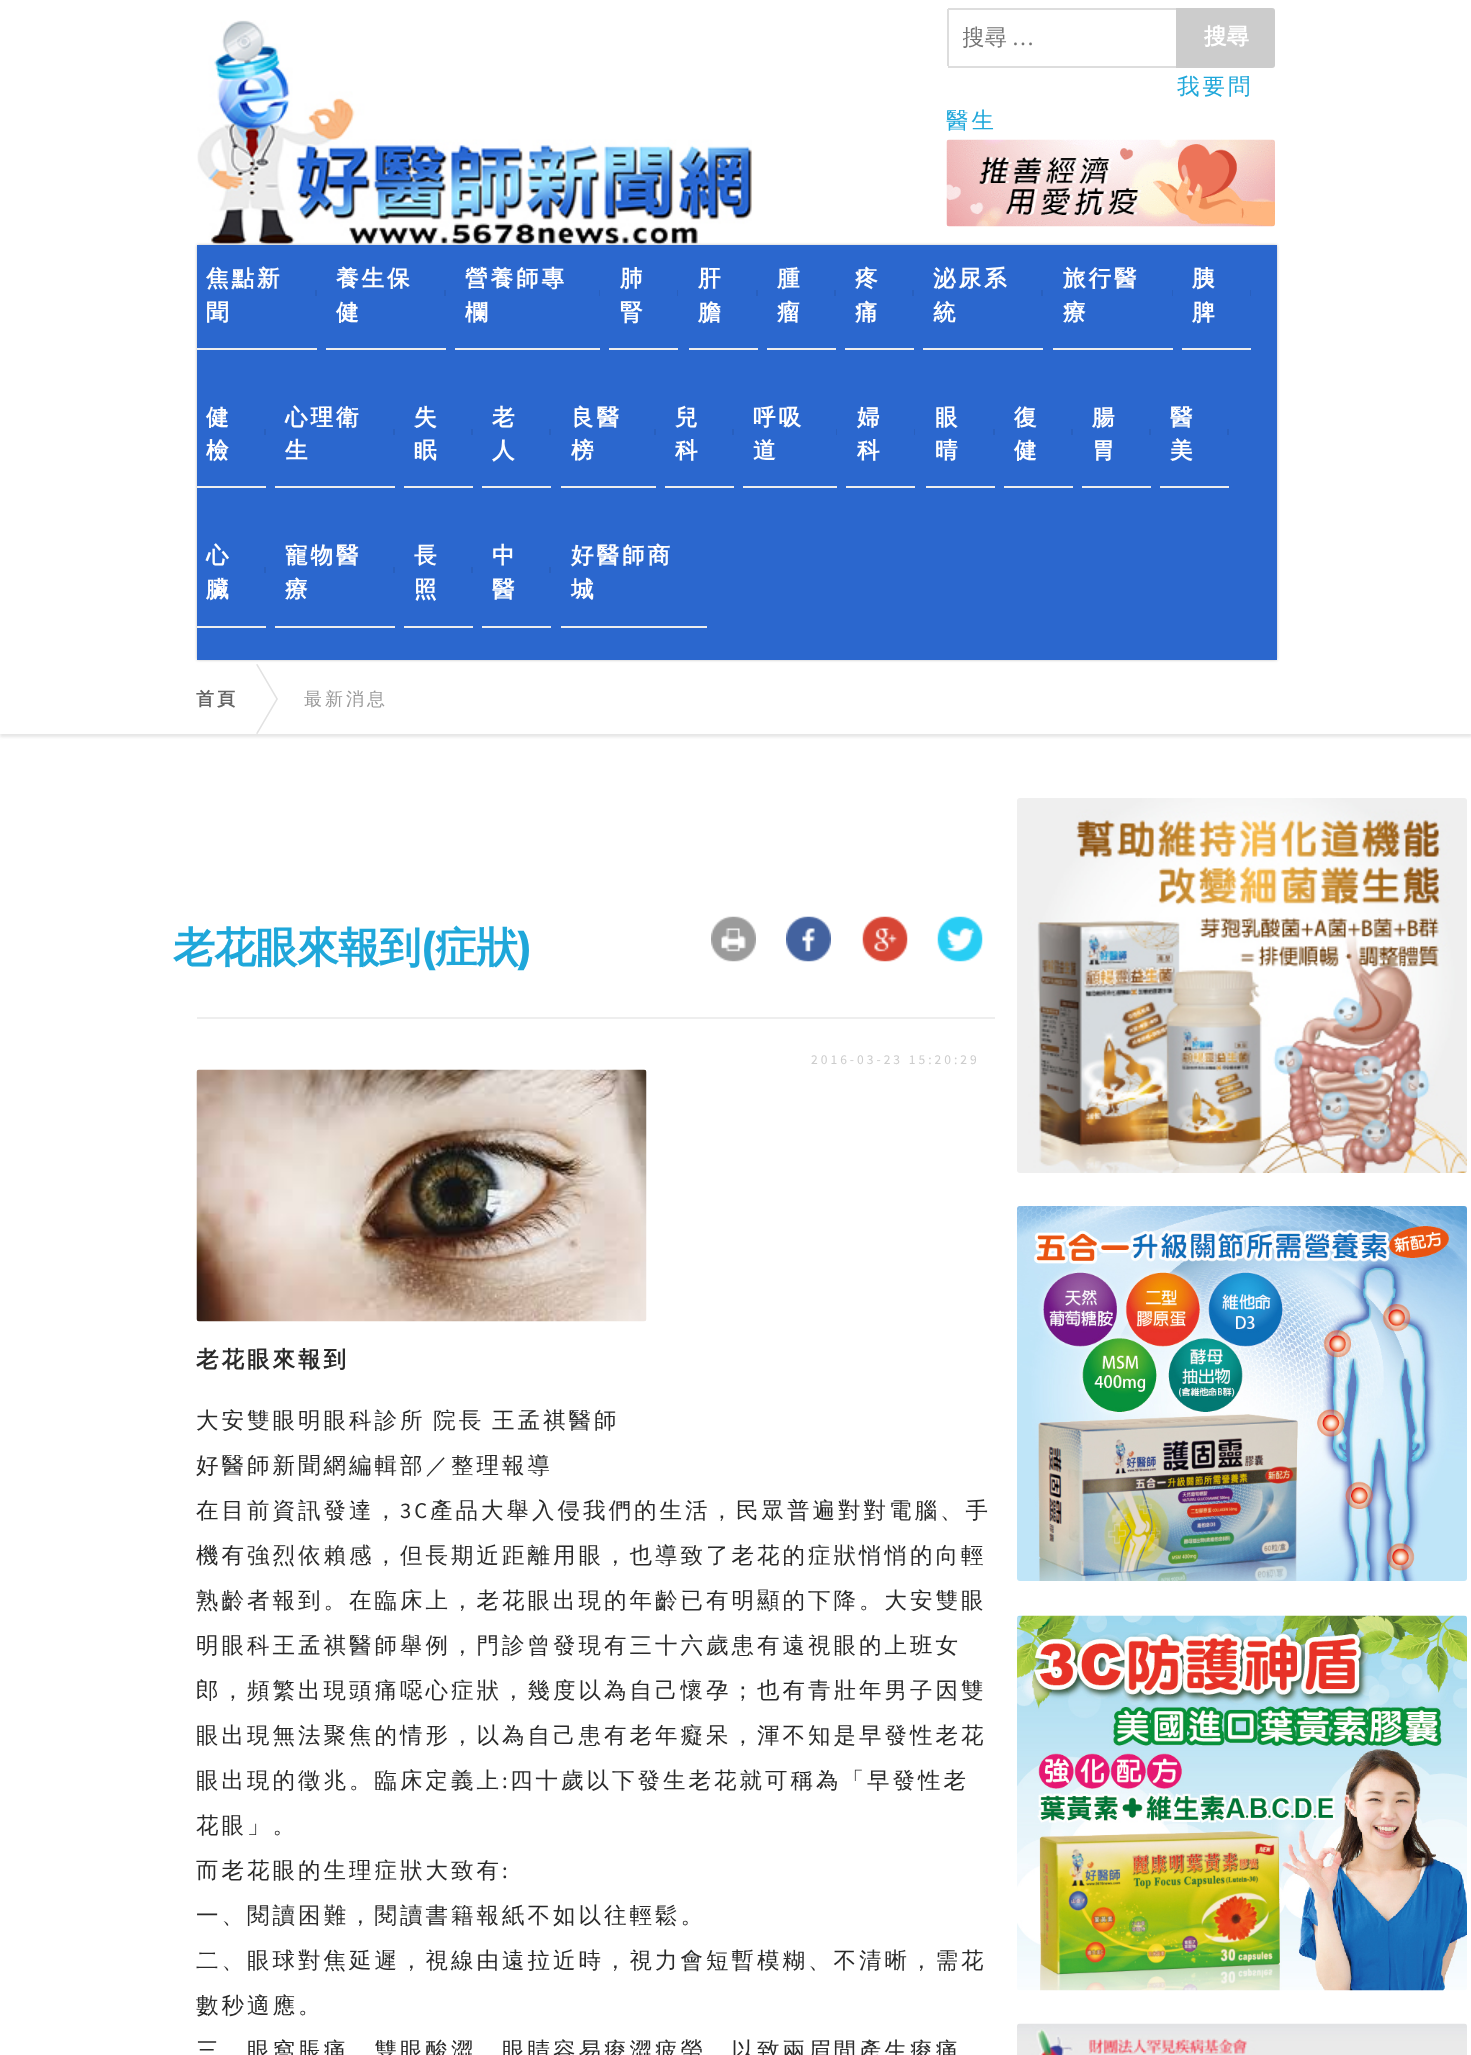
<!DOCTYPE html>
<meta charset="utf-8">
<style>body { margin: 0 } canvas { display: block }</style>
<canvas id="canvas" width="1471" height="2055"></canvas>
<img id="img1" src="images/1.png" hidden>
<img id="img2" src="images/2.png" hidden>
<img id="img3" src="images/3.png" hidden>
<img id="img4" src="images/4.png" hidden>
<img id="img5" src="images/5.png" hidden>
<img id="img6" src="images/6.png" hidden>
<img id="img7" src="images/7.png" hidden>
<img id="img8" src="images/8.png" hidden>
<img id="img9" src="images/9.png" hidden>
<img id="img10" src="images/10.png" hidden>
<img id="img11" src="images/11.png" hidden>
<script>
window.onload = function () {
    const canvas = document.getElementById('canvas');
    const context = canvas.getContext('2d');
    context.miterLimit = 4;
    context.fontKerning = 'normal';

    context.fillStyle = 'rgb(255, 255, 255)';
    context.fillRect(0, 0, 1471, 2055);
    context.drawImage(document.getElementById('img1'), 197, 20, 555, 225);
    context.fillStyle = 'rgb(221, 221, 221)';
    context.fillRect(948, 8, 228, 2);
    context.fillRect(948, 66, 228, 2);
    context.fillRect(947, 9, 2, 57);
    context.fillStyle = 'rgb(204, 204, 204)';
    context.beginPath();
    context.roundRect(1176, 8, 99, 60, [0, 3, 3, 0]);
    context.fill();
    context.drawImage(document.getElementById('img2'), 946, 139, 329, 88);
    context.save();
    context.beginPath();
    context.moveTo(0, 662);
    context.lineTo(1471, 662);
    context.lineTo(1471, 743);
    context.lineTo(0, 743);
    context.closePath();
    context.moveTo(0, 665);
    context.lineTo(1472, 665);
    context.lineTo(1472, 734);
    context.lineTo(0, 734);
    context.closePath();
    context.clip('evenodd');
    context.fillStyle = 'rgb(230, 230, 230)';
    context.filter = 'blur(1.5px)';
    context.beginPath();
    context.rect(0, 668, 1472, 69);
    context.fill();
    context.filter = 'none';
    context.restore();
    context.fillStyle = 'rgb(226, 226, 226)';
    context.beginPath();
    context.moveTo(256, 664.5);
    context.lineTo(257.5, 664);
    context.lineTo(278, 699);
    context.lineTo(276.5, 699.5);
    context.closePath();
    context.fill();
    context.fillStyle = 'rgba(0, 0, 0, 0.25)';
    context.filter = 'blur(1.5px)';
    context.beginPath();
    context.rect(197, 245, 1080, 415);
    context.fill();
    context.filter = 'none';
    context.fillStyle = 'rgb(43, 103, 206)';
    context.fillRect(197, 245, 1080, 415);
    context.fillStyle = 'rgb(238, 238, 238)';
    context.fillRect(197, 348, 120, 2);
    context.fillStyle = 'rgb(40, 95, 190)';
    context.fillRect(315, 290, 2, 6);
    context.fillStyle = 'rgb(238, 238, 238)';
    context.fillRect(326, 348, 120, 2);
    context.fillStyle = 'rgb(40, 95, 190)';
    context.fillRect(444, 290, 2, 6);
    context.fillStyle = 'rgb(238, 238, 238)';
    context.fillRect(455, 348, 145, 2);
    context.fillStyle = 'rgb(40, 95, 190)';
    context.fillRect(599, 290, 1, 6);
    context.fillStyle = 'rgb(238, 238, 238)';
    context.fillRect(609, 348, 69, 2);
    context.fillStyle = 'rgb(40, 95, 190)';
    context.fillRect(677, 290, 1, 6);
    context.fillStyle = 'rgb(238, 238, 238)';
    context.fillRect(689, 348, 69, 2);
    context.fillStyle = 'rgb(40, 95, 190)';
    context.fillRect(756, 290, 2, 6);
    context.fillStyle = 'rgb(238, 238, 238)';
    context.fillRect(767, 348, 69, 2);
    context.fillStyle = 'rgb(40, 95, 190)';
    context.fillRect(834, 290, 2, 6);
    context.fillStyle = 'rgb(238, 238, 238)';
    context.fillRect(845, 348, 69, 2);
    context.fillStyle = 'rgb(40, 95, 190)';
    context.fillRect(912, 290, 2, 6);
    context.fillStyle = 'rgb(238, 238, 238)';
    context.fillRect(923, 348, 120, 2);
    context.fillStyle = 'rgb(40, 95, 190)';
    context.fillRect(1041, 290, 2, 6);
    context.fillStyle = 'rgb(238, 238, 238)';
    context.fillRect(1053, 348, 120, 2);
    context.fillStyle = 'rgb(40, 95, 190)';
    context.fillRect(1172, 290, 1, 6);
    context.fillStyle = 'rgb(238, 238, 238)';
    context.fillRect(1182, 348, 69, 2);
    context.fillStyle = 'rgb(40, 95, 190)';
    context.fillRect(1250, 290, 1, 6);
    context.fillStyle = 'rgb(238, 238, 238)';
    context.fillRect(197, 486, 69, 2);
    context.fillStyle = 'rgb(40, 95, 190)';
    context.fillRect(264, 429, 2, 6);
    context.fillStyle = 'rgb(238, 238, 238)';
    context.fillRect(275, 486, 120, 2);
    context.fillStyle = 'rgb(40, 95, 190)';
    context.fillRect(393, 429, 2, 6);
    context.fillStyle = 'rgb(238, 238, 238)';
    context.fillRect(404, 486, 69, 2);
    context.fillStyle = 'rgb(40, 95, 190)';
    context.fillRect(471, 429, 2, 6);
    context.fillStyle = 'rgb(238, 238, 238)';
    context.fillRect(482, 486, 69, 2);
    context.fillStyle = 'rgb(40, 95, 190)';
    context.fillRect(549, 429, 2, 6);
    context.fillStyle = 'rgb(238, 238, 238)';
    context.fillRect(561, 486, 95, 2);
    context.fillStyle = 'rgb(40, 95, 190)';
    context.fillRect(654, 429, 2, 6);
    context.fillStyle = 'rgb(238, 238, 238)';
    context.fillRect(665, 486, 69, 2);
    context.fillStyle = 'rgb(40, 95, 190)';
    context.fillRect(732, 429, 2, 6);
    context.fillStyle = 'rgb(238, 238, 238)';
    context.fillRect(743, 486, 94, 2);
    context.fillStyle = 'rgb(40, 95, 190)';
    context.fillRect(836, 429, 1, 6);
    context.fillStyle = 'rgb(238, 238, 238)';
    context.fillRect(846, 486, 69, 2);
    context.fillStyle = 'rgb(40, 95, 190)';
    context.fillRect(914, 429, 1, 6);
    context.fillStyle = 'rgb(238, 238, 238)';
    context.fillRect(926, 486, 69, 2);
    context.fillStyle = 'rgb(40, 95, 190)';
    context.fillRect(993, 429, 2, 6);
    context.fillStyle = 'rgb(238, 238, 238)';
    context.fillRect(1004, 486, 69, 2);
    context.fillStyle = 'rgb(40, 95, 190)';
    context.fillRect(1071, 429, 2, 6);
    context.fillStyle = 'rgb(238, 238, 238)';
    context.fillRect(1082, 486, 69, 2);
    context.fillStyle = 'rgb(40, 95, 190)';
    context.fillRect(1149, 429, 2, 6);
    context.fillStyle = 'rgb(238, 238, 238)';
    context.fillRect(1160, 486, 69, 2);
    context.fillStyle = 'rgb(40, 95, 190)';
    context.fillRect(1227, 429, 2, 6);
    context.fillStyle = 'rgb(238, 238, 238)';
    context.fillRect(197, 626, 69, 2);
    context.fillStyle = 'rgb(40, 95, 190)';
    context.fillRect(264, 567, 2, 6);
    context.fillStyle = 'rgb(238, 238, 238)';
    context.fillRect(275, 626, 120, 2);
    context.fillStyle = 'rgb(40, 95, 190)';
    context.fillRect(393, 567, 2, 6);
    context.fillStyle = 'rgb(238, 238, 238)';
    context.fillRect(404, 626, 69, 2);
    context.fillStyle = 'rgb(40, 95, 190)';
    context.fillRect(471, 567, 2, 6);
    context.fillStyle = 'rgb(238, 238, 238)';
    context.fillRect(482, 626, 69, 2);
    context.fillStyle = 'rgb(40, 95, 190)';
    context.fillRect(549, 567, 2, 6);
    context.fillStyle = 'rgb(238, 238, 238)';
    context.fillRect(561, 626, 146, 2);
    context.fillStyle = 'rgb(226, 226, 226)';
    context.beginPath();
    context.moveTo(276.5, 698.5);
    context.lineTo(278, 699);
    context.lineTo(257.5, 734);
    context.lineTo(256, 733.5);
    context.closePath();
    context.fill();
    context.drawImage(document.getElementById('img3'), 711, 916, 45, 46);
    context.drawImage(document.getElementById('img4'), 786, 916, 45, 46);
    context.drawImage(document.getElementById('img5'), 862, 916, 46, 46);
    context.drawImage(document.getElementById('img6'), 937, 916, 46, 46);
    context.fillStyle = 'rgb(238, 238, 238)';
    context.fillRect(197, 1017, 798, 2);
    context.drawImage(document.getElementById('img7'), 196, 1069, 451, 253);
    context.drawImage(document.getElementById('img8'), 1017, 798, 450, 375);
    context.drawImage(document.getElementById('img9'), 1017, 1206, 450, 375);
    context.drawImage(document.getElementById('img10'), 1017, 1615, 450, 376);
    context.drawImage(document.getElementById('img11'), 1017, 2023, 450, 32);
    context.save();
    context.beginPath();
    context.rect(963, 23, 200, 30);
    context.clip();
    context.font = '500 22.5px WenQuanYi Zen Hei';
    context.fillStyle = 'rgb(117, 117, 117)';
    context.fillText('搜尋', 962, 45);
    context.restore();
    context.font = '22.5px Source Sans Pro';
    context.fillStyle = 'rgb(117, 117, 117)';
    context.fillText('…', 1012, 45);
    context.font = 'bold 22.5px WenQuanYi Zen Hei';
    context.fillStyle = 'rgb(255, 255, 255)';
    context.fillText('搜尋', 1204, 44);
    context.letterSpacing = '3px';
    context.font = '500 22.5px WenQuanYi Zen Hei';
    context.fillStyle = 'rgb(31, 167, 218)';
    context.fillText('我要問', 1177, 94);
    context.fillText('醫生', 946, 128);
    context.font = 'bold 22.5px WenQuanYi Zen Hei';
    context.fillStyle = 'rgb(255, 255, 255)';
    context.fillText('焦點新', 206, 286);
    context.fillText('聞', 206, 320);
    context.fillText('養生保', 336, 286);
    context.fillText('健', 336, 320);
    context.fillText('營養師專', 465, 286);
    context.fillText('欄', 465, 320);
    context.fillText('肺', 620, 286);
    context.fillText('腎', 620, 320);
    context.fillText('肝', 698, 286);
    context.fillText('膽', 698, 320);
    context.fillText('腫', 777, 286);
    context.fillText('瘤', 777, 320);
    context.fillText('疼', 855, 286);
    context.fillText('痛', 855, 320);
    context.fillText('泌尿系', 933, 286);
    context.fillText('統', 933, 320);
    context.fillText('旅行醫', 1063, 286);
    context.fillText('療', 1063, 320);
    context.fillText('胰', 1192, 286);
    context.fillText('脾', 1192, 320);
    context.fillText('健', 206, 425);
    context.fillText('檢', 206, 458);
    context.fillText('心理衛', 285, 425);
    context.fillText('生', 285, 458);
    context.fillText('失', 414, 425);
    context.fillText('眠', 414, 458);
    context.fillText('老', 492, 425);
    context.fillText('人', 492, 458);
    context.fillText('良醫', 571, 425);
    context.fillText('榜', 571, 458);
    context.fillText('兒', 675, 425);
    context.fillText('科', 675, 458);
    context.fillText('呼吸', 753, 425);
    context.fillText('道', 753, 458);
    context.fillText('婦', 857, 425);
    context.fillText('科', 857, 458);
    context.fillText('眼', 935, 425);
    context.fillText('晴', 935, 458);
    context.fillText('復', 1014, 425);
    context.fillText('健', 1014, 458);
    context.fillText('腸', 1092, 425);
    context.fillText('胃', 1092, 458);
    context.fillText('醫', 1170, 425);
    context.fillText('美', 1170, 458);
    context.fillText('心', 206, 563);
    context.fillText('臟', 206, 597);
    context.fillText('寵物醫', 285, 563);
    context.fillText('療', 285, 597);
    context.fillText('長', 414, 563);
    context.fillText('照', 414, 597);
    context.fillText('中', 492, 563);
    context.fillText('醫', 492, 597);
    context.fillText('好醫師商', 571, 563);
    context.fillText('城', 571, 597);
    context.font = 'bold 18px WenQuanYi Zen Hei';
    context.fillStyle = 'rgb(102, 102, 102)';
    context.fillText('首頁', 196, 705);
    context.font = '500 18px WenQuanYi Zen Hei';
    context.fillStyle = 'rgb(153, 153, 153)';
    context.fillText('最新消息', 304, 705);
    context.letterSpacing = '-0.75px';
    context.font = 'bold 42px WenQuanYi Zen Hei';
    context.fillStyle = 'rgb(31, 167, 218)';
    context.fillText('老花眼來報到', 173, 962);
    context.font = '100 42px Montserrat';
    context.fillText('(', 421, 962);
    context.font = 'bold 42px WenQuanYi Zen Hei';
    context.fillText('症狀', 435, 962);
    context.font = '100 42px Montserrat';
    context.fillText(')', 517, 962);
    context.letterSpacing = '3px';
    context.font = '13.5px Source Sans Pro';
    context.fillStyle = 'rgb(204, 204, 204)';
    context.fillText('2016-03-23 15:20:29', 811, 1064);
    context.font = 'bold 22.5px WenQuanYi Zen Hei';
    context.fillStyle = 'rgb(42, 42, 42)';
    context.fillText('老花眼來報到', 196, 1367);
    context.wordSpacing = '-2px';
    context.font = '500 22.5px WenQuanYi Zen Hei';
    context.fillText('大安雙眼明眼科診所 院長 王孟祺醫師', 196, 1428);
    context.wordSpacing = '0px';
    context.fillText('好醫師新聞網編輯部／整理報導', 196, 1473);
    context.fillText('在目前資訊發達，', 196, 1518);
    context.font = '22.5px Source Sans Pro';
    context.fillText('3C', 400, 1518);
    context.font = '500 22.5px WenQuanYi Zen Hei';
    context.fillText('產品大舉入侵我們的生活，民眾普遍對對電腦、手', 430, 1518);
    context.fillText('機有強烈依賴感，但長期近距離用眼，也導致了老花的症狀悄悄的向輕', 196, 1563);
    context.fillText('熟齡者報到。在臨床上，老花眼出現的年齡已有明顯的下降。大安雙眼', 196, 1608);
    context.fillText('明眼科王孟祺醫師舉例，門診曾發現有三十六歲患有遠視眼的上班女', 196, 1653);
    context.fillText('郎，頻繁出現頭痛噁心症狀，幾度以為自己懷孕；也有青壯年男子因雙', 196, 1698);
    context.fillText('眼出現無法聚焦的情形，以為自己患有老年癡呆，渾不知是早發性老花', 196, 1743);
    context.fillText('眼出現的徵兆。臨床定義上', 196, 1788);
    context.font = '22.5px Source Sans Pro';
    context.fillText(':', 502, 1788);
    context.font = '500 22.5px WenQuanYi Zen Hei';
    context.fillText('四十歲以下發生老花就可稱為「早發性老', 510, 1788);
    context.fillText('花眼」。', 196, 1833);
    context.fillText('而老花眼的生理症狀大致有', 196, 1878);
    context.font = '22.5px Source Sans Pro';
    context.fillText(':', 502, 1878);
    context.font = '500 22.5px WenQuanYi Zen Hei';
    context.fillText('一、閱讀困難，閱讀書籍報紙不如以往輕鬆。', 196, 1923);
    context.fillText('二、眼球對焦延遲，視線由遠拉近時，視力會短暫模糊、不清晰，需花', 196, 1968);
    context.fillText('數秒適應。', 196, 2013);
    context.fillText('三、眼窩脹痛、雙眼酸澀，眼睛容易痠澀疲勞，以致兩眉間產生痠痛', 196, 2058);
};
</script>
